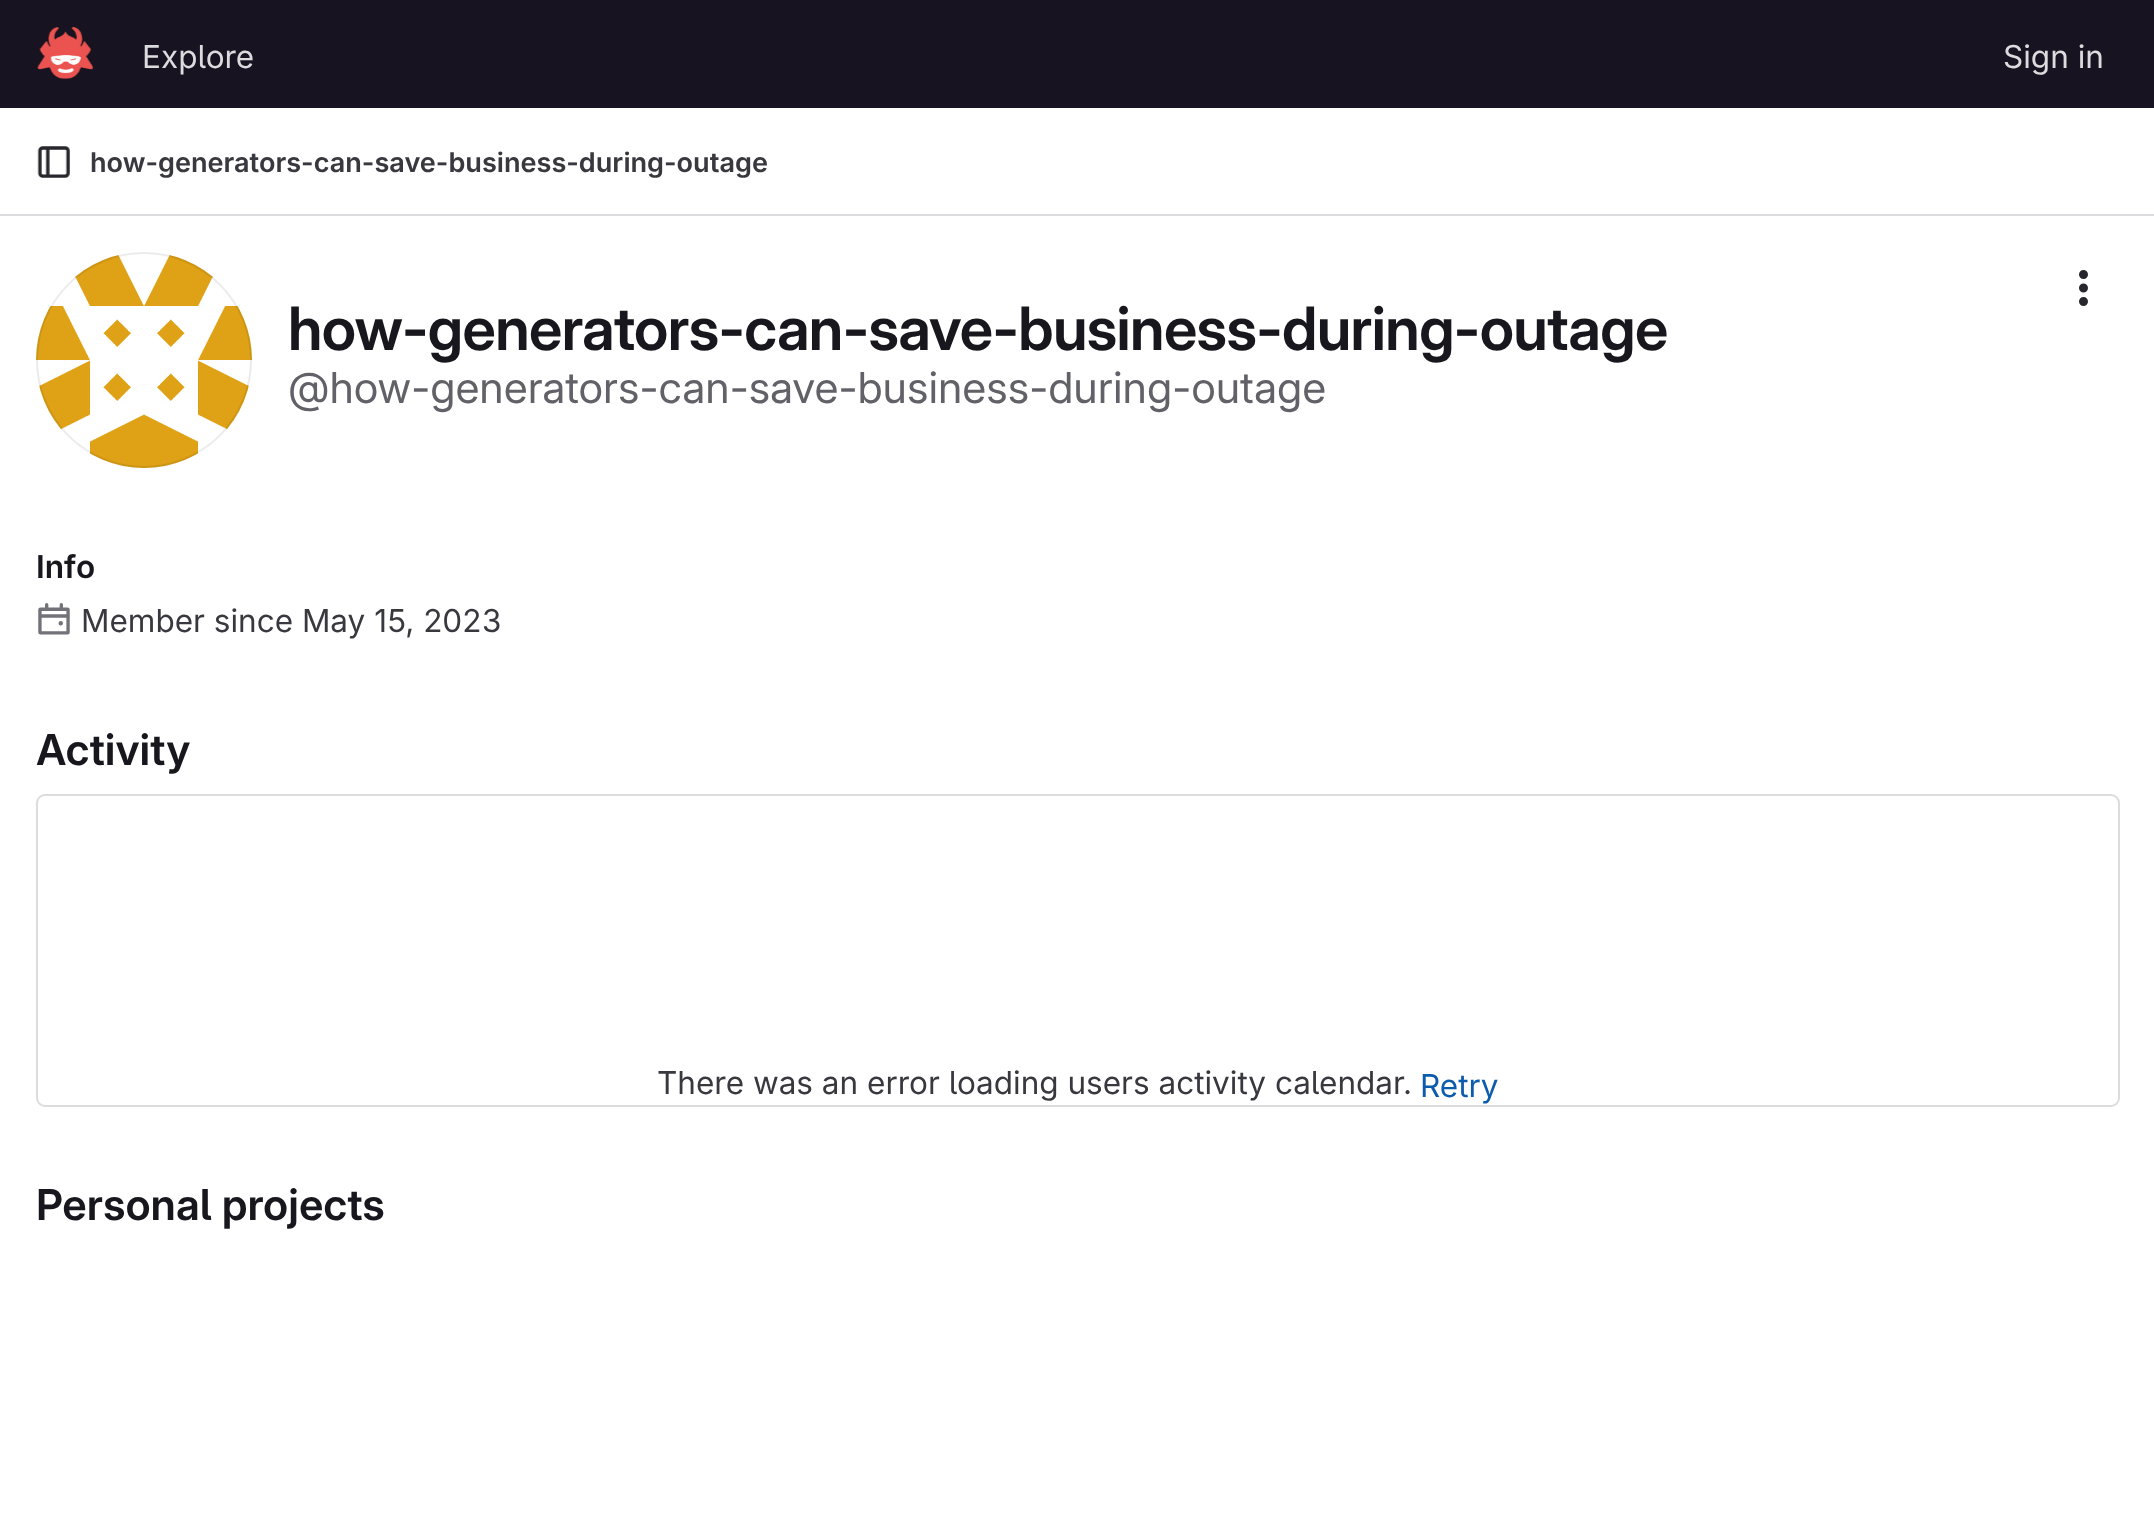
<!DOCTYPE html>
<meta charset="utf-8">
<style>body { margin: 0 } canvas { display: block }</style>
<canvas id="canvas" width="2154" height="1535"></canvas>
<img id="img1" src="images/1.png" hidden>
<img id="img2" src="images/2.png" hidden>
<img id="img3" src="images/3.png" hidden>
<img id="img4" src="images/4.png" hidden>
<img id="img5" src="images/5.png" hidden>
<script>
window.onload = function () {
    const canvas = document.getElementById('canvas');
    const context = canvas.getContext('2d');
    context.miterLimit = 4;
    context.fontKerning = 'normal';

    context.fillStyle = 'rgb(255, 255, 255)';
    context.fillRect(0, 0, 2154, 1535);
    context.fillStyle = 'rgb(23, 19, 33)';
    context.fillRect(0, 0, 2154, 108);
    context.drawImage(document.getElementById('img1'), 37, 27, 57, 52);
    context.fillStyle = 'rgb(220, 220, 222)';
    context.fillRect(0, 214, 2154, 2);
    context.drawImage(document.getElementById('img2'), 37, 146, 33, 32);
    context.drawImage(document.getElementById('img3'), 2079, 270, 9, 36);
    context.drawImage(document.getElementById('img4'), 36, 255, 216, 213);
    context.beginPath();
    context.arc(144, 360, 107, 0, 2 * Math.PI);
    context.strokeStyle = 'rgba(5, 5, 6, 0.08)';
    context.lineWidth = 2;
    context.stroke();
    context.drawImage(document.getElementById('img5'), 38, 603, 32, 32);
    context.beginPath();
    context.roundRect(37, 795, 2082, 311, 8);
    context.strokeStyle = 'rgb(220, 220, 222)';
    context.stroke();
    context.font = '31.5px "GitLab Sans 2"';
    context.fillText('Explore', 142, 68);
    context.fillText('Sign in', 2003, 68);
    context.font = '600 27px "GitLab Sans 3"';
    context.fillStyle = 'rgb(58, 56, 63)';
    context.fillText('how-generators-can-save-business-during-outage', 90, 172);
    context.letterSpacing = '-0.6px';
    context.font = '600 59.9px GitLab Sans';
    context.fillStyle = 'rgb(24, 23, 29)';
    context.fillText('how-generators-can-save-business-during-outage', 288, 350);
    context.letterSpacing = '0px';
    context.font = '42.75px GitLab Sans';
    context.fillStyle = 'rgb(98, 97, 104)';
    context.fillText('@how-generators-can-save-business-during-outage', 288, 403);
    context.font = '600 31.5px "GitLab Sans 3"';
    context.fillStyle = 'rgb(24, 23, 29)';
    context.fillText('Info', 36, 578);
    context.font = '31.5px "GitLab Sans 2"';
    context.fillStyle = 'rgb(58, 56, 63)';
    context.fillText('Member since May 15, 2023', 81, 632);
    context.font = '600 42.5px "GitLab Sans 2"';
    context.fillStyle = 'rgb(24, 23, 29)';
    context.fillText('Activity', 36, 765);
    context.font = '31.5px "GitLab Sans 2"';
    context.fillStyle = 'rgb(58, 56, 63)';
    context.fillText('There was an error loading users activity calendar.', 657, 1094);
    context.fillStyle = 'rgb(11, 92, 173)';
    context.fillText('Retry', 1420, 1097);
    context.font = '600 42.5px "GitLab Sans 2"';
    context.fillStyle = 'rgb(24, 23, 29)';
    context.fillText('Personal projects', 36, 1220);
};
</script>
